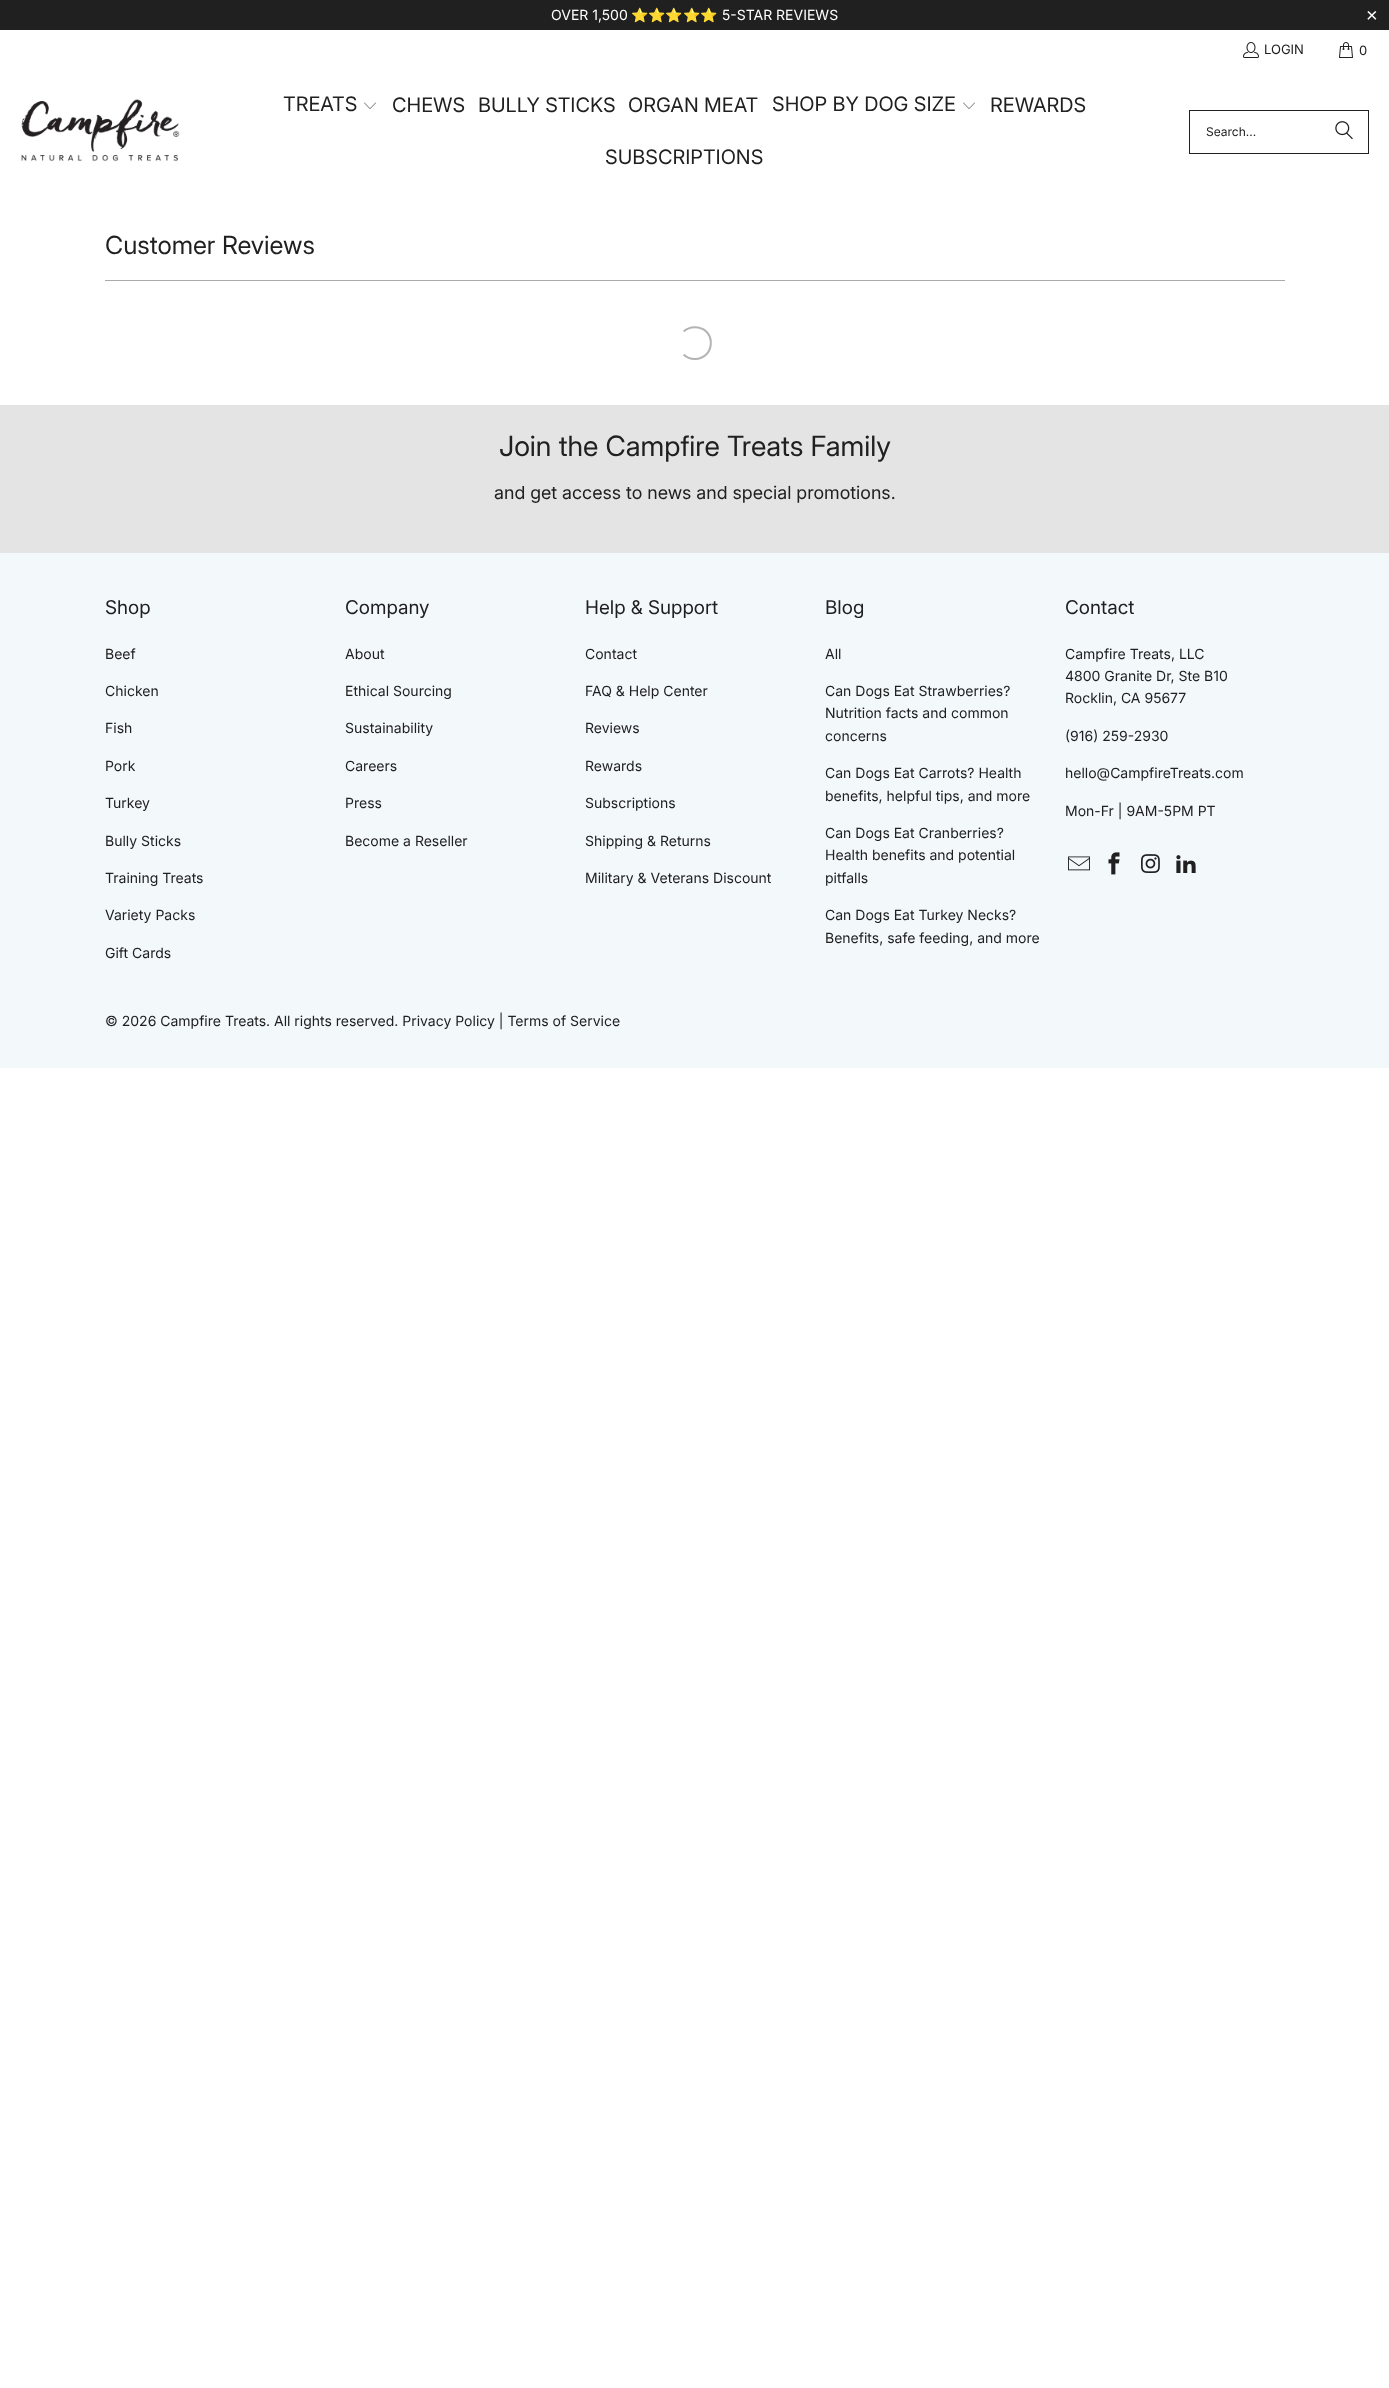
<!DOCTYPE html>
<meta charset="utf-8">
<style>body { margin: 0 } canvas { display: block }</style>
<canvas id="canvas" width="1389" height="2388"></canvas>
<img id="img1" src="images/1.png" hidden>
<img id="img2" src="images/2.png" hidden>
<img id="img3" src="images/3.png" hidden>
<img id="img4" src="images/4.png" hidden>
<img id="img5" src="images/5.png" hidden>
<img id="img6" src="images/6.png" hidden>
<img id="img7" src="images/7.png" hidden>
<img id="img8" src="images/8.png" hidden>
<img id="img9" src="images/9.png" hidden>
<script>
window.onload = function () {
    const canvas = document.getElementById('canvas');
    const context = canvas.getContext('2d');
    context.miterLimit = 4;
    context.fontKerning = 'normal';

    context.fillStyle = 'rgb(255, 255, 255)';
    context.fillRect(0, 0, 1389, 2388);
    context.fillStyle = 'rgb(32, 32, 32)';
    context.fillRect(0, 0, 1389, 30);
    context.drawImage(document.getElementById('img1'), 1243, 42, 16, 16);
    context.drawImage(document.getElementById('img2'), 1339, 42, 14, 16);
    context.drawImage(document.getElementById('img3'), 21, 99, 159, 63);
    context.drawImage(document.getElementById('img4'), 364, 102, 12, 7);
    context.drawImage(document.getElementById('img4'), 963, 102, 12, 7);
    context.strokeStyle = 'rgb(32, 32, 32)';
    context.strokeRect(1189.5, 110.5, 179, 43);
    context.drawImage(document.getElementById('img5'), 1335, 121, 18, 19);
    context.fillStyle = 'rgb(170, 170, 170)';
    context.fillRect(105, 280, 1180, 1);
    context.beginPath();
    context.moveTo(683.5, 331.5);
    context.bezierCurveTo(687.5, 328, 693, 326.5, 698, 327.5);
    context.bezierCurveTo(717, 331, 714, 359, 695, 359);
    context.bezierCurveTo(691, 359, 686.5, 357.5, 683.5, 354.5);
    context.strokeStyle = 'rgb(179, 179, 179)';
    context.lineWidth = 2;
    context.stroke();
    context.beginPath();
    context.moveTo(683.5, 354.5);
    context.bezierCurveTo(677.5, 348, 677.5, 338, 683.5, 331.5);
    context.strokeStyle = 'rgb(255, 255, 255)';
    context.stroke();
    context.fillStyle = 'rgb(228, 228, 228)';
    context.fillRect(0, 405, 1389, 148);
    context.fillStyle = 'rgb(243, 248, 251)';
    context.fillRect(0, 553, 1389, 515);
    context.drawImage(document.getElementById('img6'), 1068, 856, 22, 15);
    context.drawImage(document.getElementById('img7'), 1108, 852, 12, 23);
    context.drawImage(document.getElementById('img8'), 1141, 854, 19, 19);
    context.drawImage(document.getElementById('img9'), 1176, 855, 20, 18);
    context.font = '14px "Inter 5"';
    context.fillStyle = 'rgb(255, 255, 255)';
    context.fillText('OVER 1,500', 551, 20);
    context.font = '14px Noto Color Emoji';
    context.fillText('⭐️⭐️⭐️⭐️⭐️', 631, 20);
    context.font = '14px "Inter 5"';
    context.fillText('5-STAR REVIEWS', 722, 20);
    context.font = '20px Liberation Sans';
    context.fillText('×', 1366, 22);
    context.font = '13px "Inter 5"';
    context.fillStyle = 'rgb(32, 32, 32)';
    context.fillText('LOGIN', 1264, 54);
    context.fillText('0', 1359, 55);
    context.font = '20px "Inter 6"';
    context.fillText('TREATS', 283, 111);
    context.fillText('CHEWS', 392, 112);
    context.fillText('BULLY STICKS', 478, 112);
    context.fillText('ORGAN MEAT', 628, 112);
    context.fillText('SHOP BY DOG SIZE', 772, 111);
    context.fillText('REWARDS', 990, 112);
    context.fillText('SUBSCRIPTIONS', 605, 164);
    context.font = '12px "Inter 5"';
    context.fillText('Search...', 1206, 136);
    context.font = '25px Inter';
    context.fillText('Customer Reviews', 105, 254);
    context.font = '28px "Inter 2"';
    context.fillText('Join the Campfire Treats Family', 499, 456);
    context.font = '18px "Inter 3"';
    context.fillText('and get access to news and special promotions.', 494, 499);
    context.font = '19px "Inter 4"';
    context.fillText('Shop', 105, 614);
    context.font = '14px "Inter 5"';
    context.fillText('Beef', 105, 659);
    context.fillText('Chicken', 105, 696);
    context.fillText('Fish', 105, 733);
    context.fillText('Pork', 105, 771);
    context.fillText('Turkey', 105, 808);
    context.fillText('Bully Sticks', 105, 846);
    context.fillText('Training Treats', 105, 883);
    context.fillText('Variety Packs', 105, 920);
    context.fillText('Gift Cards', 105, 958);
    context.font = '19px "Inter 4"';
    context.fillText('Company', 345, 614);
    context.font = '14px "Inter 5"';
    context.fillText('About', 345, 659);
    context.fillText('Ethical Sourcing', 345, 696);
    context.fillText('Sustainability', 345, 733);
    context.fillText('Careers', 345, 771);
    context.fillText('Press', 345, 808);
    context.fillText('Become a Reseller', 345, 846);
    context.font = '19px "Inter 4"';
    context.fillText('Help & Support', 585, 614);
    context.font = '14px "Inter 5"';
    context.fillText('Contact', 585, 659);
    context.fillText('FAQ & Help Center', 585, 696);
    context.fillText('Reviews', 585, 733);
    context.fillText('Rewards', 585, 771);
    context.fillText('Subscriptions', 585, 808);
    context.fillText('Shipping & Returns', 585, 846);
    context.fillText('Military & Veterans Discount', 585, 883);
    context.font = '19px "Inter 4"';
    context.fillText('Blog', 825, 614);
    context.font = '14px "Inter 5"';
    context.fillText('All', 825, 659);
    context.fillText('Can Dogs Eat Strawberries?', 825, 696);
    context.fillText('Nutrition facts and common', 825, 718);
    context.fillText('concerns', 825, 741);
    context.fillText('Can Dogs Eat Carrots? Health', 825, 778);
    context.fillText('benefits, helpful tips, and more', 825, 801);
    context.fillText('Can Dogs Eat Cranberries?', 825, 838);
    context.fillText('Health benefits and potential', 825, 860);
    context.fillText('pitfalls', 825, 883);
    context.fillText('Can Dogs Eat Turkey Necks?', 825, 920);
    context.fillText('Benefits, safe feeding, and more', 825, 943);
    context.font = '19px "Inter 4"';
    context.fillText('Contact', 1065, 614);
    context.font = '14px "Inter 5"';
    context.fillText('Campfire Treats, LLC', 1065, 659);
    context.fillText('4800 Granite Dr, Ste B10', 1065, 681);
    context.fillText('Rocklin, CA 95677', 1065, 703);
    context.fillText('(916) 259-2930', 1065, 741);
    context.fillText('hello@CampfireTreats.com', 1065, 778);
    context.fillText('Mon-Fr | 9AM-5PM PT', 1065, 816);
    context.fillText('© 2026 Campfire Treats', 105, 1026);
    context.fillText('. All rights reserved. Privacy Policy | Terms of Service', 266, 1026);
};
</script>
